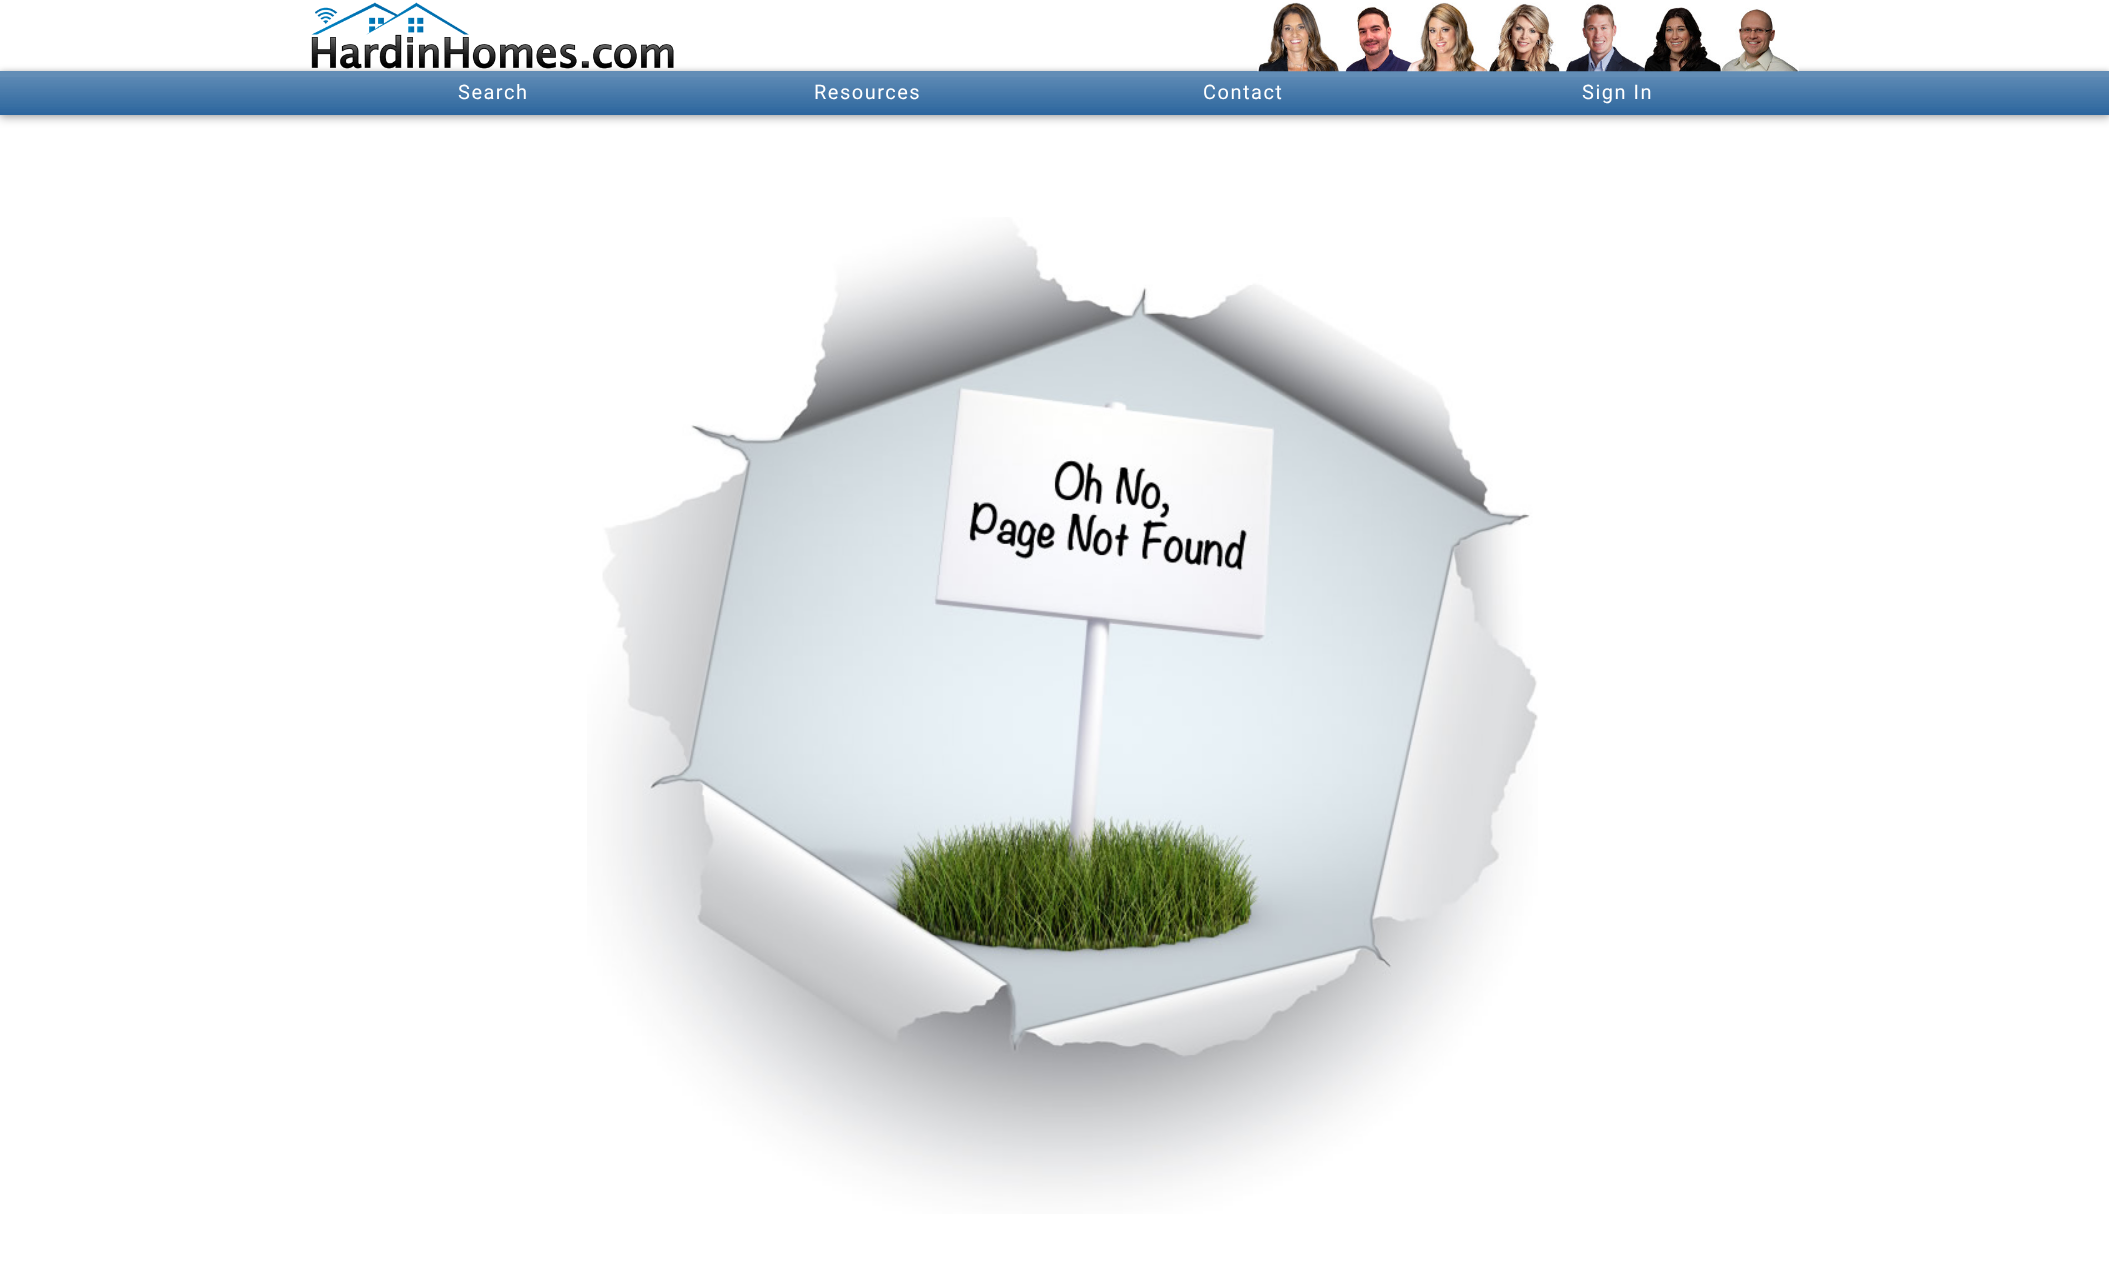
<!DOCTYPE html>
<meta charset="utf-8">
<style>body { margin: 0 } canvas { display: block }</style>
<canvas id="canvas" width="2109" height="1284"></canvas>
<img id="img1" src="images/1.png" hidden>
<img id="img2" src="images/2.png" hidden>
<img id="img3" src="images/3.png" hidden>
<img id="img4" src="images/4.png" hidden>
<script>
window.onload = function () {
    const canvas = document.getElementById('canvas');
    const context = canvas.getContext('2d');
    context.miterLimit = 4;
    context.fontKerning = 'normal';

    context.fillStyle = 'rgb(255, 255, 255)';
    context.fillRect(0, 0, 2109, 1284);
    context.fillStyle = 'rgba(0, 0, 0, 0.28)';
    context.filter = 'blur(5px)';
    context.beginPath();
    context.rect(0, 74, 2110, 44);
    context.fill();
    context.filter = 'none';
    context.fillStyle = 'rgba(0, 0, 0, 0.14)';
    context.filter = 'blur(2.5px)';
    context.beginPath();
    context.rect(0, 71, 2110, 44);
    context.fill();
    context.filter = 'none';
    context.drawImage(document.getElementById('img1'), 311, 2, 363, 67);
    context.fillStyle = 'rgb(98, 141, 182)';
    context.fillRect(0, 71, 2109, 6);
    context.drawImage(document.getElementById('img2'), 1257, 2, 542, 70);
    context.drawImage(document.getElementById('img3'), 0, 77, 2109, 38);
    context.drawImage(document.getElementById('img4'), 587, 217, 951, 997);
    context.letterSpacing = '1.5px';
    context.font = '20px Roboto';
    context.fillStyle = 'rgb(255, 255, 255)';
    context.fillText('Search', 458, 99);
    context.fillText('Resources', 814, 99);
    context.fillText('Contact', 1203, 99);
    context.fillText('Sign In', 1582, 99);
};
</script>
